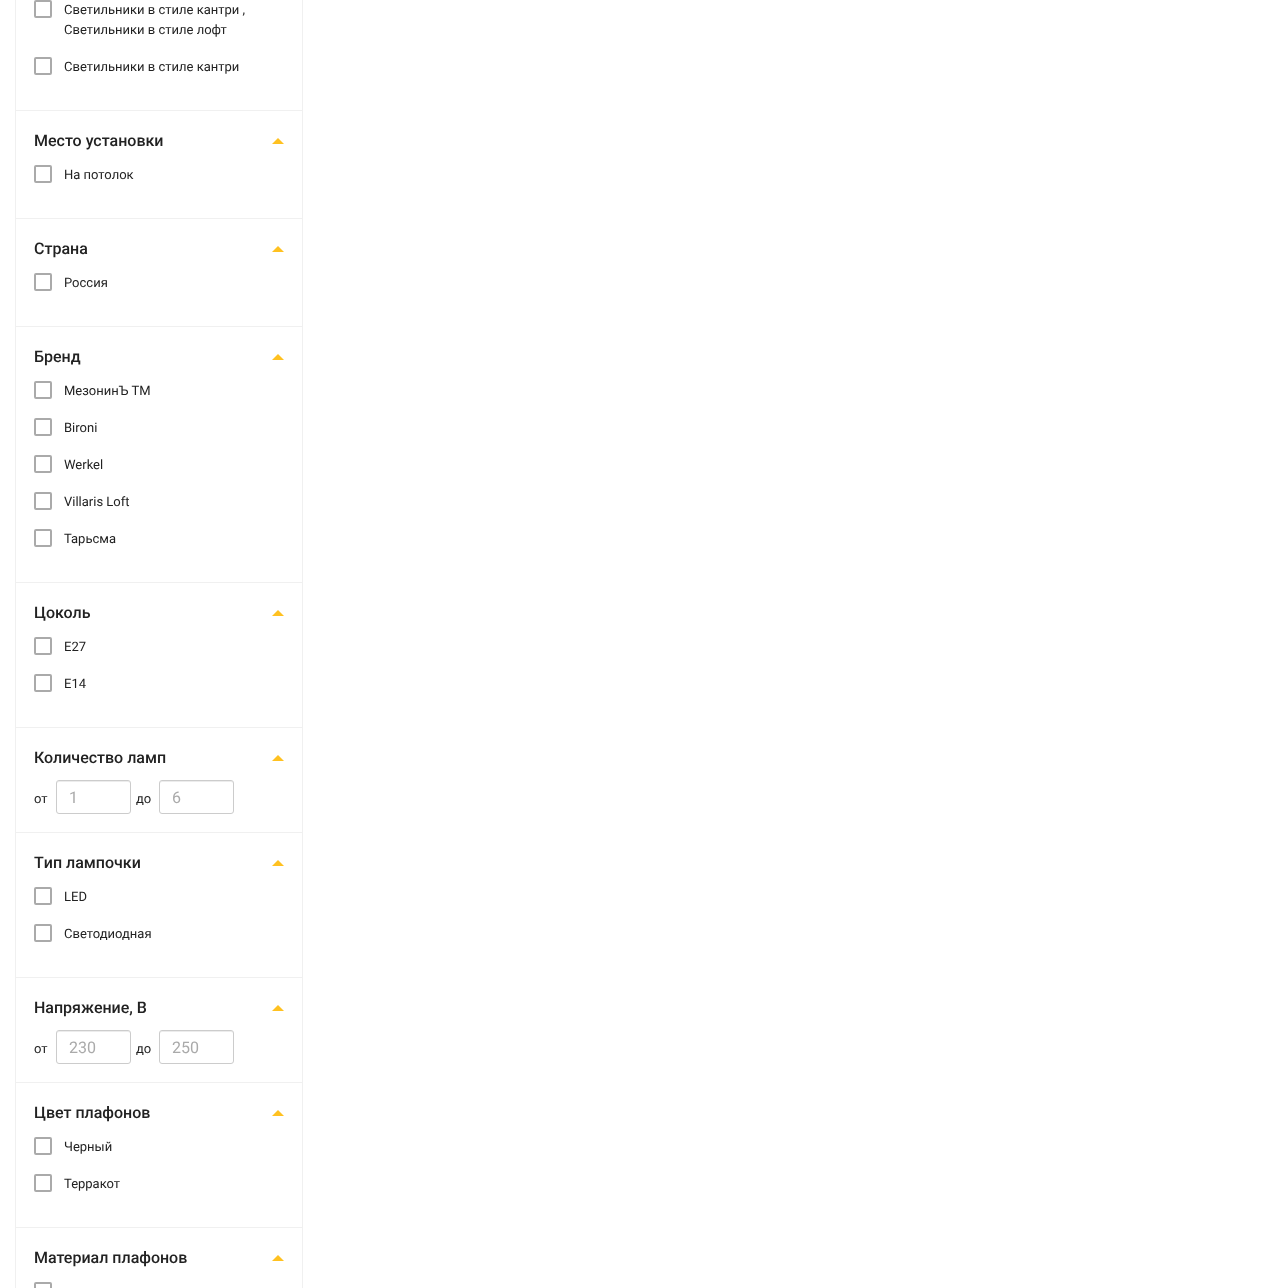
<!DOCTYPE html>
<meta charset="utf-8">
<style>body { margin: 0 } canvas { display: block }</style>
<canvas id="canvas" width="1273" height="1288"></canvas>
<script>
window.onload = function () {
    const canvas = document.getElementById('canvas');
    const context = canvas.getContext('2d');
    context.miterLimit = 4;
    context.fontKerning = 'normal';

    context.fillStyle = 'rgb(255, 255, 255)';
    context.fillRect(0, 0, 1273, 1288);
    context.strokeStyle = 'rgb(240, 240, 240)';
    context.strokeRect(15.5, -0.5, 287, 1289);
    context.fillStyle = 'rgb(240, 240, 240)';
    context.fillRect(16, 110, 286, 1);
    context.beginPath();
    context.roundRect(35, 1, 16, 16, 1);
    context.strokeStyle = 'rgb(170, 170, 170)';
    context.lineWidth = 2;
    context.stroke();
    context.beginPath();
    context.roundRect(35, 58, 16, 16, 1);
    context.stroke();
    context.fillRect(16, 218, 286, 1);
    context.fillStyle = 'rgb(255, 193, 32)';
    context.beginPath();
    context.moveTo(284, 144);
    context.lineTo(272, 144);
    context.lineTo(278, 138);
    context.closePath();
    context.fill();
    context.beginPath();
    context.roundRect(35, 166, 16, 16, 1);
    context.stroke();
    context.fillStyle = 'rgb(240, 240, 240)';
    context.fillRect(16, 326, 286, 1);
    context.fillStyle = 'rgb(255, 193, 32)';
    context.beginPath();
    context.moveTo(284, 252);
    context.lineTo(272, 252);
    context.lineTo(278, 246);
    context.closePath();
    context.fill();
    context.beginPath();
    context.roundRect(35, 274, 16, 16, 1);
    context.stroke();
    context.fillStyle = 'rgb(240, 240, 240)';
    context.fillRect(16, 582, 286, 1);
    context.fillStyle = 'rgb(255, 193, 32)';
    context.beginPath();
    context.moveTo(284, 360);
    context.lineTo(272, 360);
    context.lineTo(278, 354);
    context.closePath();
    context.fill();
    context.beginPath();
    context.roundRect(35, 382, 16, 16, 1);
    context.stroke();
    context.beginPath();
    context.roundRect(35, 419, 16, 16, 1);
    context.stroke();
    context.beginPath();
    context.roundRect(35, 456, 16, 16, 1);
    context.stroke();
    context.beginPath();
    context.roundRect(35, 493, 16, 16, 1);
    context.stroke();
    context.beginPath();
    context.roundRect(35, 530, 16, 16, 1);
    context.stroke();
    context.fillStyle = 'rgb(240, 240, 240)';
    context.fillRect(16, 727, 286, 1);
    context.fillStyle = 'rgb(255, 193, 32)';
    context.beginPath();
    context.moveTo(284, 616);
    context.lineTo(272, 616);
    context.lineTo(278, 610);
    context.closePath();
    context.fill();
    context.beginPath();
    context.roundRect(35, 638, 16, 16, 1);
    context.stroke();
    context.beginPath();
    context.roundRect(35, 675, 16, 16, 1);
    context.stroke();
    context.fillStyle = 'rgb(240, 240, 240)';
    context.fillRect(16, 832, 286, 1);
    context.fillStyle = 'rgb(255, 193, 32)';
    context.beginPath();
    context.moveTo(284, 761);
    context.lineTo(272, 761);
    context.lineTo(278, 755);
    context.closePath();
    context.fill();
    context.fillStyle = 'rgb(236, 236, 236)';
    context.beginPath();
    context.moveTo(59, 782);
    context.lineTo(128, 782);
    context.bezierCurveTo(129, 782, 130, 783, 130, 784);
    context.bezierCurveTo(130, 778, 120, 781, 116, 781);
    context.lineTo(70, 781);
    context.bezierCurveTo(67, 781, 57, 778, 57, 784);
    context.bezierCurveTo(57, 783, 58, 782, 59, 782);
    context.closePath();
    context.fill();
    context.beginPath();
    context.roundRect(56.5, 780.5, 74, 33, 2.5);
    context.strokeStyle = 'rgb(204, 204, 204)';
    context.lineWidth = 1;
    context.stroke();
    context.beginPath();
    context.moveTo(162, 782);
    context.lineTo(231, 782);
    context.bezierCurveTo(232, 782, 233, 783, 233, 784);
    context.bezierCurveTo(233, 778, 223, 781, 220, 781);
    context.lineTo(174, 781);
    context.bezierCurveTo(170, 781, 160, 778, 160, 784);
    context.bezierCurveTo(160, 783, 161, 782, 162, 782);
    context.closePath();
    context.fill();
    context.beginPath();
    context.roundRect(159.5, 780.5, 74, 33, 2.5);
    context.stroke();
    context.fillStyle = 'rgb(240, 240, 240)';
    context.fillRect(16, 977, 286, 1);
    context.fillStyle = 'rgb(255, 193, 32)';
    context.beginPath();
    context.moveTo(284, 866);
    context.lineTo(272, 866);
    context.lineTo(278, 860);
    context.closePath();
    context.fill();
    context.beginPath();
    context.roundRect(35, 888, 16, 16, 1);
    context.strokeStyle = 'rgb(170, 170, 170)';
    context.lineWidth = 2;
    context.stroke();
    context.beginPath();
    context.roundRect(35, 925, 16, 16, 1);
    context.stroke();
    context.fillStyle = 'rgb(240, 240, 240)';
    context.fillRect(16, 1082, 286, 1);
    context.fillStyle = 'rgb(255, 193, 32)';
    context.beginPath();
    context.moveTo(284, 1011);
    context.lineTo(272, 1011);
    context.lineTo(278, 1005);
    context.closePath();
    context.fill();
    context.fillStyle = 'rgb(236, 236, 236)';
    context.beginPath();
    context.moveTo(59, 1032);
    context.lineTo(128, 1032);
    context.bezierCurveTo(129, 1032, 130, 1033, 130, 1034);
    context.bezierCurveTo(130, 1028, 120, 1031, 116, 1031);
    context.lineTo(70, 1031);
    context.bezierCurveTo(67, 1031, 57, 1028, 57, 1034);
    context.bezierCurveTo(57, 1033, 58, 1032, 59, 1032);
    context.closePath();
    context.fill();
    context.beginPath();
    context.roundRect(56.5, 1030.5, 74, 33, 2.5);
    context.strokeStyle = 'rgb(204, 204, 204)';
    context.lineWidth = 1;
    context.stroke();
    context.beginPath();
    context.moveTo(162, 1032);
    context.lineTo(231, 1032);
    context.bezierCurveTo(232, 1032, 233, 1033, 233, 1034);
    context.bezierCurveTo(233, 1028, 223, 1031, 220, 1031);
    context.lineTo(174, 1031);
    context.bezierCurveTo(170, 1031, 160, 1028, 160, 1034);
    context.bezierCurveTo(160, 1033, 161, 1032, 162, 1032);
    context.closePath();
    context.fill();
    context.beginPath();
    context.roundRect(159.5, 1030.5, 74, 33, 2.5);
    context.stroke();
    context.fillStyle = 'rgb(240, 240, 240)';
    context.fillRect(16, 1227, 286, 1);
    context.fillStyle = 'rgb(255, 193, 32)';
    context.beginPath();
    context.moveTo(284, 1116);
    context.lineTo(272, 1116);
    context.lineTo(278, 1110);
    context.closePath();
    context.fill();
    context.beginPath();
    context.roundRect(35, 1138, 16, 16, 1);
    context.strokeStyle = 'rgb(170, 170, 170)';
    context.lineWidth = 2;
    context.stroke();
    context.beginPath();
    context.roundRect(35, 1175, 16, 16, 1);
    context.stroke();
    context.beginPath();
    context.moveTo(284, 1261);
    context.lineTo(272, 1261);
    context.lineTo(278, 1255);
    context.closePath();
    context.fill();
    context.beginPath();
    context.roundRect(35, 1283, 16, 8, 1);
    context.stroke();
    context.font = '13px Roboto';
    context.fillStyle = 'rgb(34, 34, 34)';
    context.fillText('Светильники в стиле кантри ,', 64, 14);
    context.fillText('Светильники в стиле лофт', 64, 34);
    context.fillText('Светильники в стиле кантри', 64, 71);
    context.font = '500 16px Roboto';
    context.fillText('Место установки', 34, 146);
    context.font = '13px Roboto';
    context.fillText('На потолок', 64, 179);
    context.font = '500 16px Roboto';
    context.fillText('Страна', 34, 254);
    context.font = '13px Roboto';
    context.fillText('Россия', 64, 287);
    context.font = '500 16px Roboto';
    context.fillText('Бренд', 34, 362);
    context.font = '13px Roboto';
    context.fillText('МезонинЪ ТМ', 64, 395);
    context.fillText('Bironi', 64, 432);
    context.fillText('Werkel', 64, 469);
    context.fillText('Villaris Loft', 64, 506);
    context.fillText('Тарьсма', 64, 543);
    context.font = '500 16px Roboto';
    context.fillText('Цоколь', 34, 618);
    context.font = '13px Roboto';
    context.fillText('Е27', 64, 651);
    context.fillText('Е14', 64, 688);
    context.font = '500 16px Roboto';
    context.fillText('Количество ламп', 34, 763);
    context.font = '13px Roboto';
    context.fillText('от', 34, 803);
    context.font = '16px Roboto';
    context.fillStyle = 'rgb(170, 170, 170)';
    context.fillText('1', 69, 803);
    context.font = '13px Roboto';
    context.fillStyle = 'rgb(34, 34, 34)';
    context.fillText('до', 136, 803);
    context.font = '16px Roboto';
    context.fillStyle = 'rgb(170, 170, 170)';
    context.fillText('6', 172, 803);
    context.font = '500 16px Roboto';
    context.fillStyle = 'rgb(34, 34, 34)';
    context.fillText('Tип лампочки', 34, 868);
    context.font = '13px Roboto';
    context.fillText('LED', 64, 901);
    context.fillText('Светодиодная', 64, 938);
    context.font = '500 16px Roboto';
    context.fillText('Напряжение, В', 34, 1013);
    context.font = '13px Roboto';
    context.fillText('от', 34, 1053);
    context.font = '16px Roboto';
    context.fillStyle = 'rgb(170, 170, 170)';
    context.fillText('230', 69, 1053);
    context.font = '13px Roboto';
    context.fillStyle = 'rgb(34, 34, 34)';
    context.fillText('до', 136, 1053);
    context.font = '16px Roboto';
    context.fillStyle = 'rgb(170, 170, 170)';
    context.fillText('250', 172, 1053);
    context.font = '500 16px Roboto';
    context.fillStyle = 'rgb(34, 34, 34)';
    context.fillText('Цвет плафонов', 34, 1118);
    context.font = '13px Roboto';
    context.fillText('Черный', 64, 1151);
    context.fillText('Терракот', 64, 1188);
    context.font = '500 16px Roboto';
    context.fillText('Материал плафонов', 34, 1263);
};
</script>
